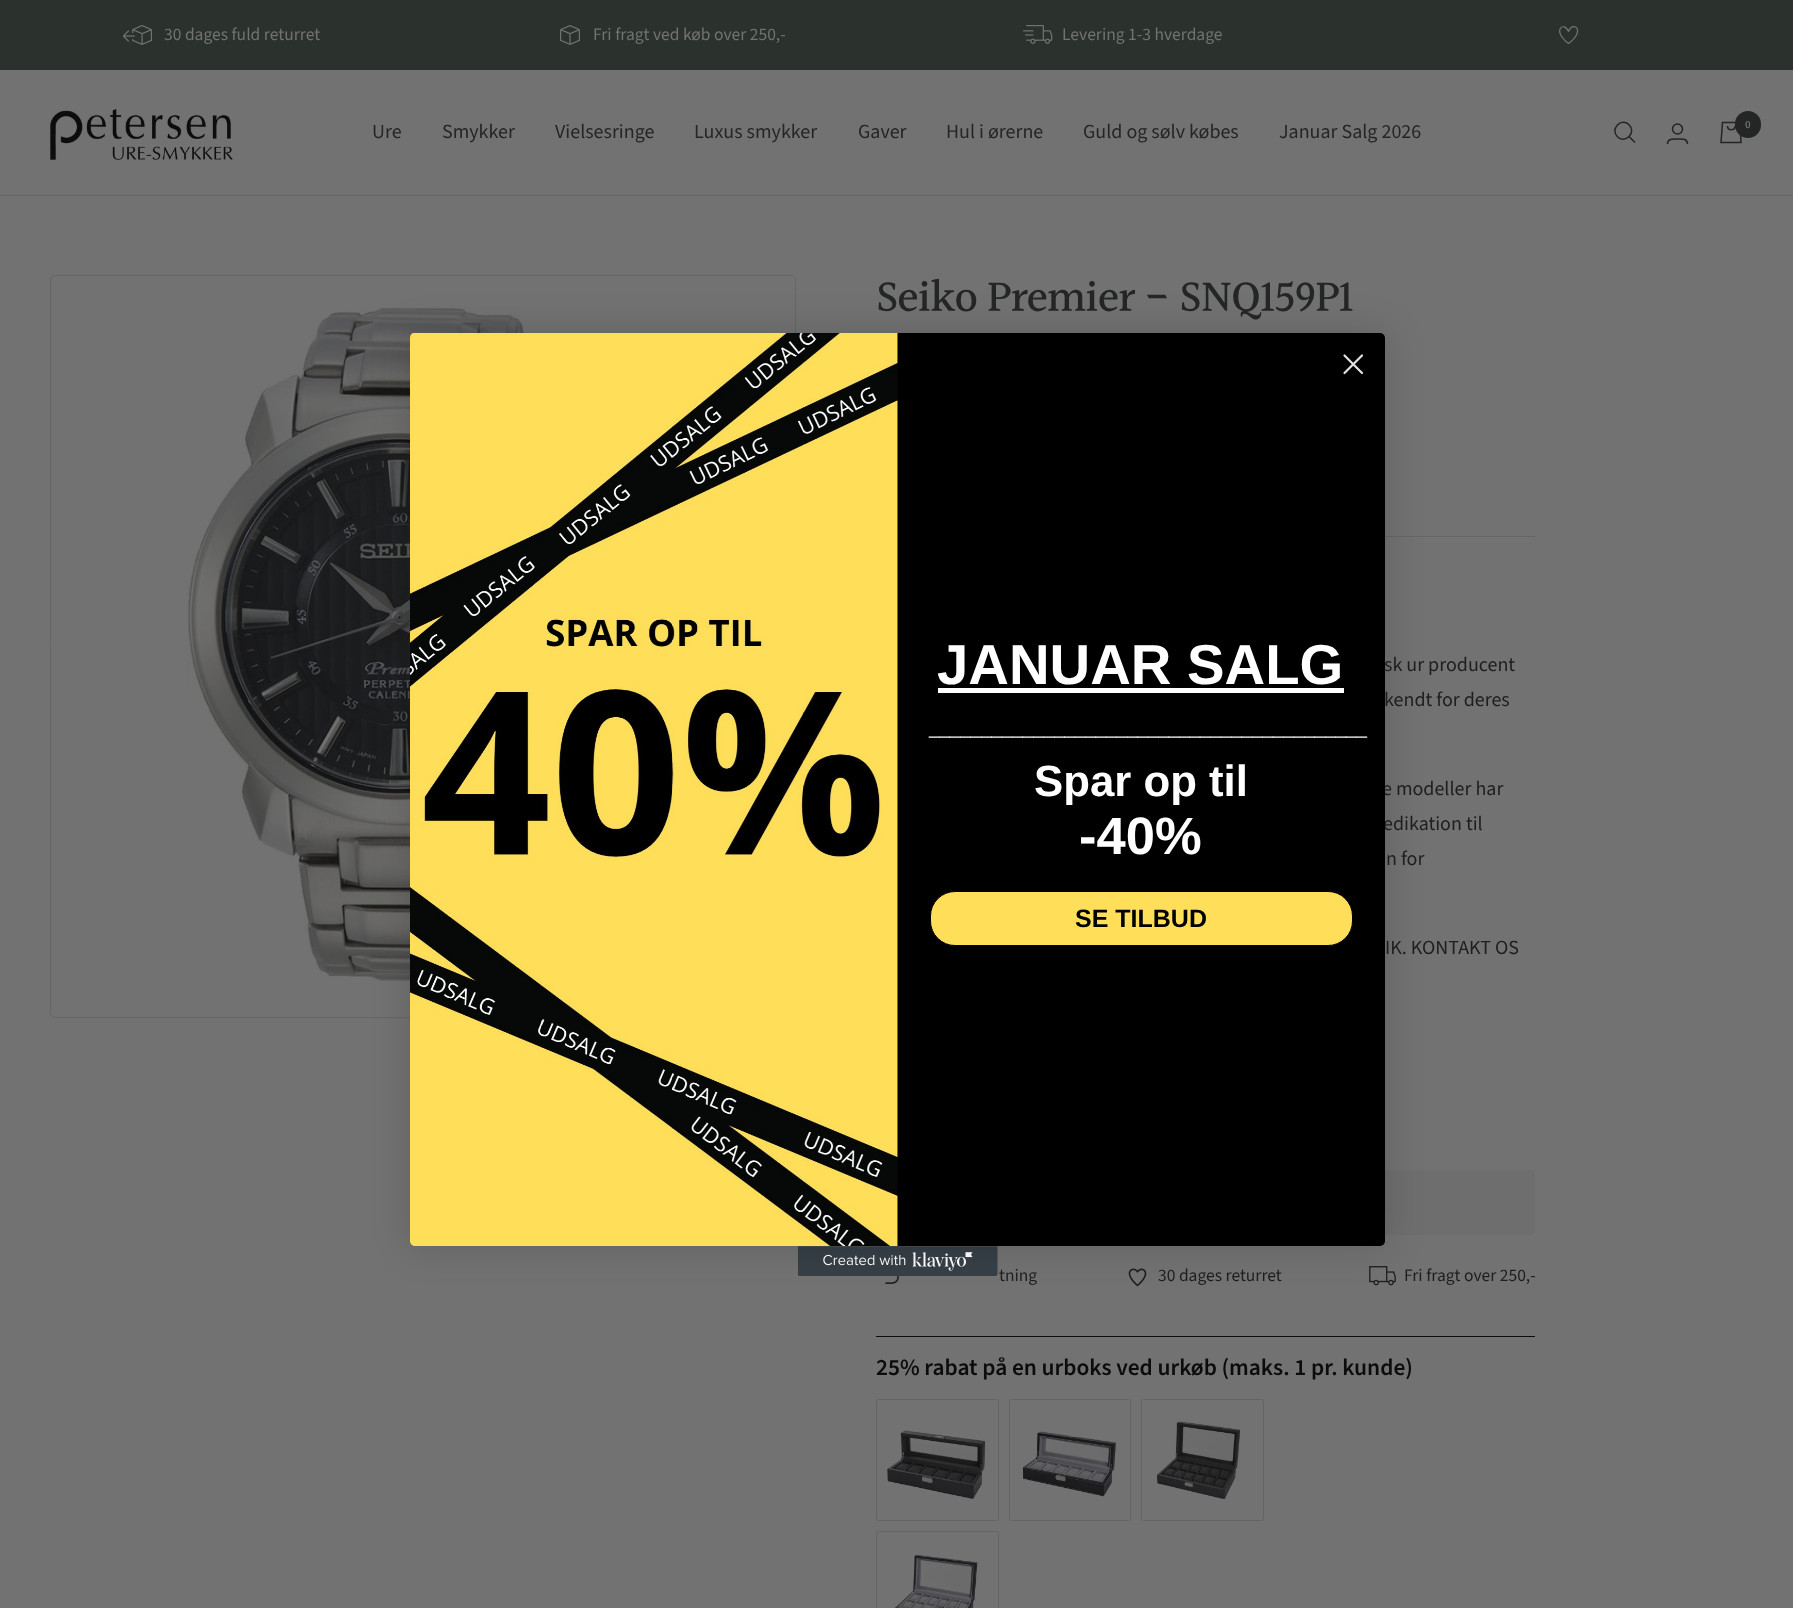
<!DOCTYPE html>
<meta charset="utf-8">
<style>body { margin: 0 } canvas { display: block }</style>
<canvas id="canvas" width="1793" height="1608"></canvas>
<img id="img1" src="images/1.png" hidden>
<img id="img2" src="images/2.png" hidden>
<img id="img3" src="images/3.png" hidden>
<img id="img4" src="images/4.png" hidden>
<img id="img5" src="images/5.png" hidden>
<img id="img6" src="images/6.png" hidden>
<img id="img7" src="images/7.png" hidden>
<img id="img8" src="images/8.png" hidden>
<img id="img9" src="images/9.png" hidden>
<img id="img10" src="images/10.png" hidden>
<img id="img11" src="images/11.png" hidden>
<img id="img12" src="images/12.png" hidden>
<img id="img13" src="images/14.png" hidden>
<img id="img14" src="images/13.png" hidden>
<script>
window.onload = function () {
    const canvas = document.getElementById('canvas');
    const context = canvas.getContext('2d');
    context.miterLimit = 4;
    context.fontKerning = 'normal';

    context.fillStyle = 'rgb(114, 114, 114)';
    context.fillRect(0, 0, 1793, 1608);
    context.fillStyle = 'rgb(43, 50, 46)';
    context.fillRect(0, 0, 1793, 70);
    context.drawImage(document.getElementById('img1'), 123, 25, 30, 20);
    context.drawImage(document.getElementById('img2'), 560, 25, 20, 20);
    context.drawImage(document.getElementById('img3'), 1023, 25, 30, 19);
    context.beginPath();
    context.moveTo(1568.5, 43.5);
    context.bezierCurveTo(1551, 30.5, 1564, 20.5, 1568.5, 31.5);
    context.moveTo(1568.5, 43.5);
    context.bezierCurveTo(1586.5, 30.5, 1573, 20, 1568.5, 31.5);
    context.strokeStyle = 'rgb(114, 114, 114)';
    context.lineWidth = 1.2;
    context.lineCap = 'round';
    context.lineJoin = 'round';
    context.stroke();
    context.fillStyle = 'rgb(102, 102, 102)';
    context.beginPath();
    context.moveTo(0, 195);
    context.lineTo(0, 196);
    context.lineTo(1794, 196);
    context.lineTo(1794, 71);
    context.lineTo(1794, 195);
    context.closePath();
    context.fill();
    context.drawImage(document.getElementById('img4'), 50, 109, 183, 51);
    context.beginPath();
    context.moveTo(1629, 136.5);
    context.bezierCurveTo(1637, 129, 1625.5, 117, 1617.5, 125);
    context.bezierCurveTo(1609.5, 133, 1621.5, 144.5, 1629, 136.5);
    context.closePath();
    context.moveTo(1629, 136.5);
    context.lineTo(1635, 142.5);
    context.strokeStyle = 'rgb(35, 38, 36)';
    context.lineWidth = 1.5;
    context.lineCap = 'butt';
    context.lineJoin = 'miter';
    context.stroke();
    context.beginPath();
    context.arc(1677.5, 129, 5, 0, 2 * Math.PI);
    context.stroke();
    context.beginPath();
    context.moveTo(1667.5, 144);
    context.bezierCurveTo(1667.5, 138, 1673.5, 139, 1677.5, 139);
    context.bezierCurveTo(1681.5, 139, 1687.5, 138, 1687.5, 144);
    context.stroke();
    context.beginPath();
    context.moveTo(1722.5, 122.5);
    context.lineTo(1740, 122.5);
    context.lineTo(1741, 142.5);
    context.lineTo(1721, 142.5);
    context.closePath();
    context.moveTo(1727.5, 126);
    context.bezierCurveTo(1727.5, 131, 1735, 131, 1735, 126);
    context.stroke();
    context.fillStyle = 'rgb(35, 38, 36)';
    context.beginPath();
    context.roundRect(1735, 111, 26, 27, 13);
    context.fill();
    context.beginPath();
    context.roundRect(50.5, 275.5, 745, 742, 4.5);
    context.strokeStyle = 'rgb(102, 102, 102)';
    context.lineWidth = 1;
    context.stroke();
    context.drawImage(document.getElementById('img5'), 187, 307, 469, 675);
    context.fillStyle = 'rgb(102, 102, 102)';
    context.fillRect(1385, 536, 150, 1);
    context.fillStyle = 'rgb(110, 110, 110)';
    context.beginPath();
    context.roundRect(876, 1170, 659, 65, 5);
    context.fill();
    context.drawImage(document.getElementById('img6'), 885, 1276, 14, 8);
    context.drawImage(document.getElementById('img7'), 1128, 1268, 19, 19);
    context.drawImage(document.getElementById('img8'), 1369, 1266, 27, 20);
    context.fillStyle = 'rgb(12, 12, 12)';
    context.fillRect(876, 1336, 659, 1);
    context.beginPath();
    context.roundRect(876.5, 1399.5, 122, 121, 2);
    context.strokeStyle = 'rgb(100, 100, 100)';
    context.stroke();
    context.drawImage(document.getElementById('img9'), 887, 1430, 98, 69);
    context.beginPath();
    context.roundRect(1009.5, 1399.5, 121, 121, 2);
    context.stroke();
    context.drawImage(document.getElementById('img10'), 1022, 1431, 94, 66);
    context.beginPath();
    context.roundRect(1141.5, 1399.5, 122, 121, 2);
    context.stroke();
    context.drawImage(document.getElementById('img11'), 1157, 1421, 83, 79);
    context.beginPath();
    context.roundRect(876.5, 1531.5, 122, 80, 2);
    context.stroke();
    context.drawImage(document.getElementById('img12'), 895, 1554, 83, 54);
    context.drawImage(document.getElementById('img13'), 798, 1246, 200, 30);
    context.fillStyle = 'rgba(0, 0, 0, 0.15)';
    context.filter = 'blur(19px)';
    context.beginPath();
    context.roundRect(410, 333, 975, 913, 5);
    context.fill();
    context.filter = 'none';
    context.font = '17.5px Source Sans Pro';
    context.fillStyle = 'rgb(114, 114, 114)';
    context.fillText('30 dages fuld returret', 164, 40);
    context.fillText('Fri fragt ved køb over 250,-', 593, 40);
    context.fillText('Levering 1-3 hverdage', 1062, 40);
    context.font = '20px Source Sans Pro';
    context.fillStyle = 'rgb(35, 38, 36)';
    context.fillText('Ure', 372, 138);
    context.fillText('Smykker', 442, 138);
    context.fillText('Vielsesringe', 555, 138);
    context.fillText('Luxus smykker', 694, 138);
    context.fillText('Gaver', 858, 138);
    context.fillText('Hul i ørerne', 946, 138);
    context.fillText('Guld og sølv købes', 1083, 138);
    context.fillText('Januar Salg 2026', 1279, 138);
    context.font = '600 11px Source Sans Pro';
    context.fillStyle = 'rgb(114, 114, 114)';
    context.fillText('0', 1745, 128);
    context.letterSpacing = '-1px';
    context.font = '500 45px Halant';
    context.fillStyle = 'rgb(35, 38, 36)';
    context.fillText('Seiko Premier - SNQ159P1', 876, 313);
    context.letterSpacing = '0px';
    context.font = '20px Source Sans Pro';
    context.fillStyle = 'rgb(30, 30, 30)';
    context.fillText('sk ur producent', 1384, 671);
    context.fillText('kendt for deres', 1384, 706);
    context.fillText('e modeller har', 1382, 795);
    context.fillText('edikation til', 1383, 830);
    context.fillText('n for', 1386, 865);
    context.fillText('IK. KONTAKT OS', 1385, 954);
    context.font = '17.5px Source Sans Pro';
    context.fillText('tning', 999, 1281);
    context.fillText('30 dages returret', 1158, 1281);
    context.fillText('Fri fragt over 250,-', 1404, 1281);
    context.font = '600 23.4px Source Sans Pro';
    context.fillStyle = 'rgb(12, 12, 12)';
    context.fillText('25% rabat på en urboks ved urkøb (maks. 1 pr. kunde)', 876, 1375);
    context.fillStyle = 'rgb(0, 0, 0)';
    context.beginPath();
    context.roundRect(410, 333, 975, 913, 5);
    context.fill();
    context.beginPath();
    context.moveTo(1344.5, 355.5);
    context.lineTo(1362, 373);
    context.moveTo(1344.5, 373);
    context.lineTo(1362, 355.5);
    context.closePath();
    context.strokeStyle = 'rgb(227, 227, 227)';
    context.lineWidth = 2.2;
    context.lineCap = 'round';
    context.lineJoin = 'round';
    context.stroke();
    context.drawImage(document.getElementById('img14'), 410, 333, 488, 913);
    context.font = 'bold 56.25px Liberation Sans';
    context.fillStyle = 'rgb(255, 255, 255)';
    context.fillText('JANUAR SALG', 937, 684);
    context.fillRect(938, 688, 406, 5);
    context.font = '18.75px Liberation Sans';
    context.fillText('__________________________________________', 929, 734);
    context.font = 'bold 43.75px Liberation Sans';
    context.fillText('Spar op til', 1034, 796);
    context.font = 'bold 52.5px Liberation Sans';
    context.fillText('-40%', 1079, 854);
    context.fillStyle = 'rgb(255, 222, 89)';
    context.beginPath();
    context.roundRect(930.5, 891.5, 422, 54, 24.5);
    context.fill();
    context.strokeStyle = 'rgb(0, 0, 0)';
    context.lineWidth = 1;
    context.lineJoin = 'miter';
    context.stroke();
    context.font = 'bold 25px Liberation Sans';
    context.fillStyle = 'rgb(0, 0, 0)';
    context.fillText('SE TILBUD', 1075, 927);
};
</script>
